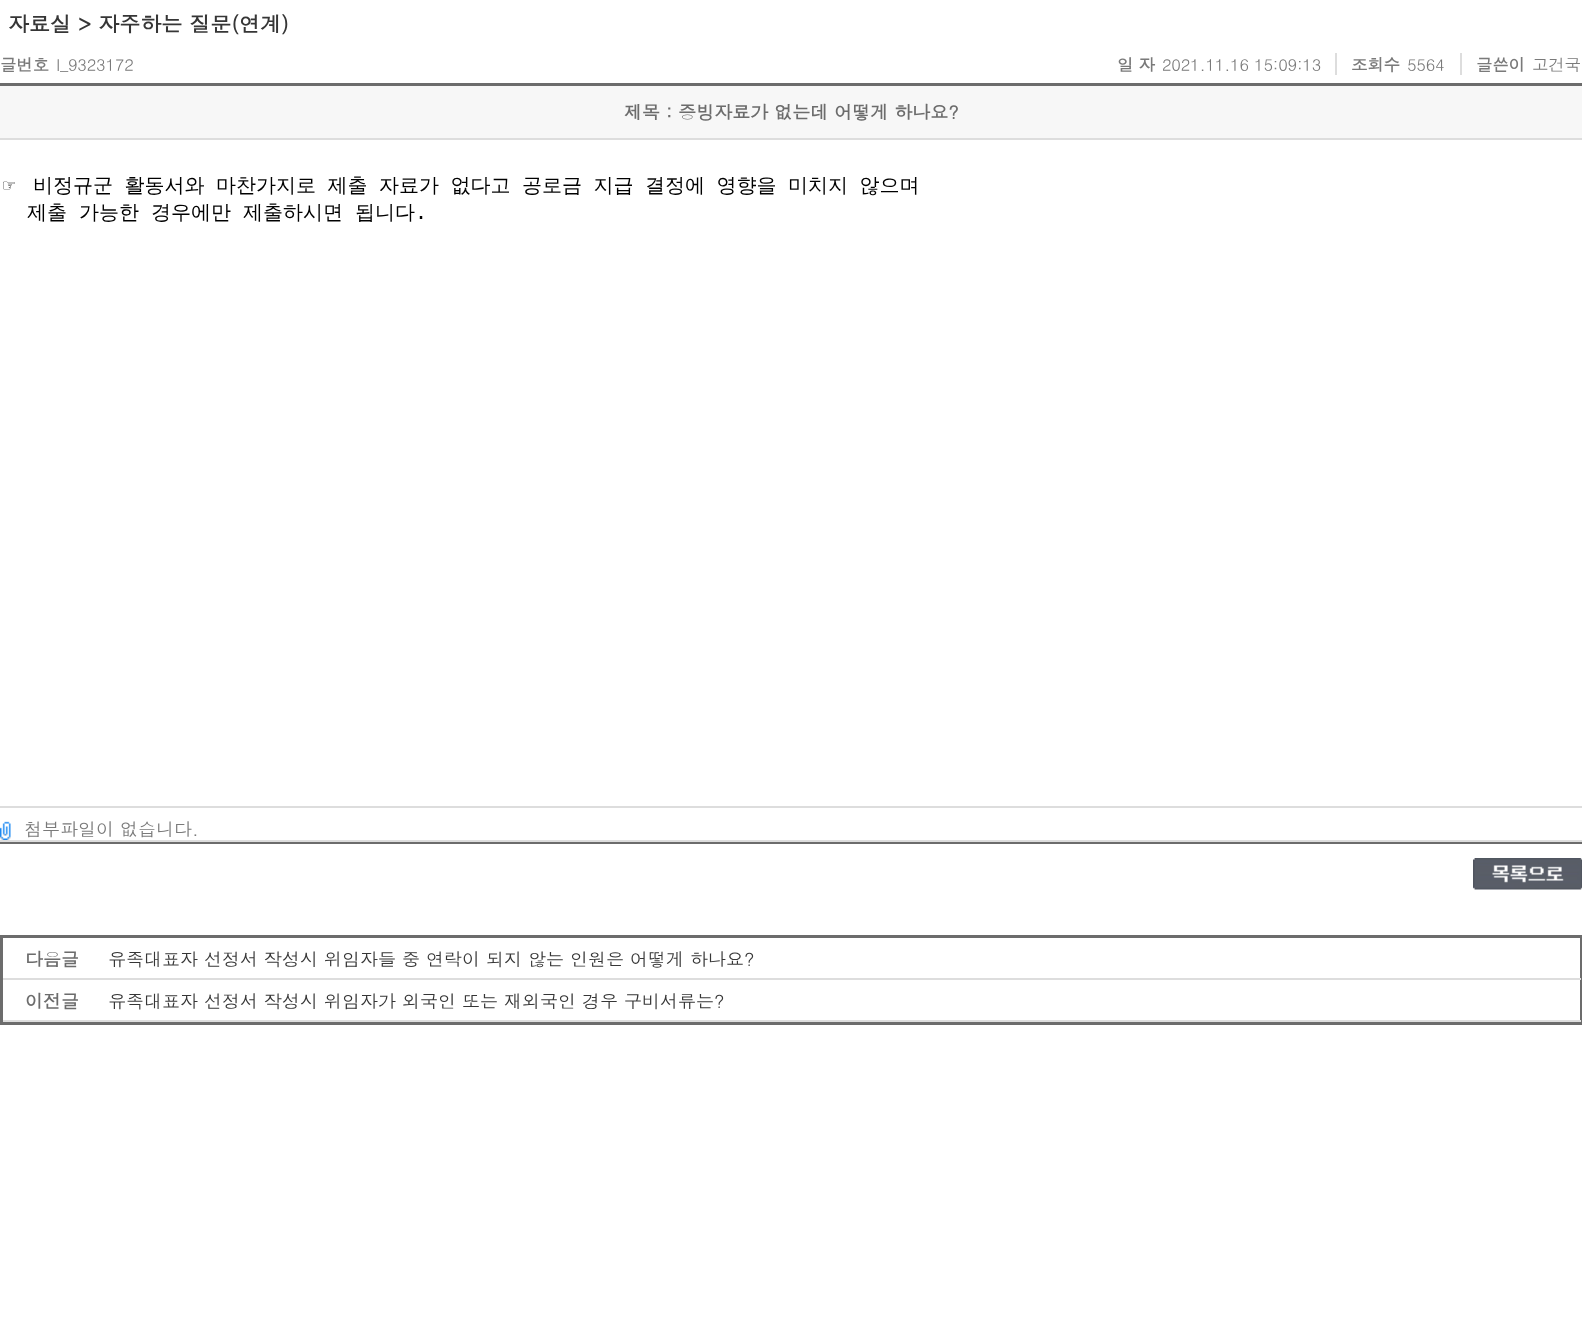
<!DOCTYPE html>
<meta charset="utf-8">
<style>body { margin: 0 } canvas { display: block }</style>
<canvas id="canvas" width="1582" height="1338"></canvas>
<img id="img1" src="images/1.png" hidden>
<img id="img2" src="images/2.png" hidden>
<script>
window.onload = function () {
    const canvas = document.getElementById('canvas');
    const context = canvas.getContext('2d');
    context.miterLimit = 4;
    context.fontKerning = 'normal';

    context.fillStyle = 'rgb(255, 255, 255)';
    context.fillRect(0, 0, 1582, 1338);
    context.fillStyle = 'rgb(221, 221, 221)';
    context.fillRect(1335, 53, 2, 22);
    context.fillRect(1460, 53, 2, 22);
    context.fillStyle = 'rgb(108, 108, 108)';
    context.fillRect(0, 83, 1582, 3);
    context.fillRect(0, 842, 1582, 2);
    context.fillStyle = 'rgb(247, 247, 247)';
    context.fillRect(0, 86, 1582, 52);
    context.fillStyle = 'rgb(221, 221, 221)';
    context.fillRect(0, 138, 1582, 2);
    context.fillRect(0, 806, 1582, 2);
    context.fillRect(0, 840, 1582, 2);
    context.drawImage(document.getElementById('img1'), 0, 821, 11, 19);
    context.drawImage(document.getElementById('img2'), 1473, 858, 109, 32);
    context.strokeStyle = 'rgb(108, 108, 108)';
    context.lineWidth = 3;
    context.strokeRect(1.5, 936.5, 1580, 87);
    context.fillRect(3, 978, 1578, 2);
    context.fillRect(3, 1020, 1578, 2);
    context.font = 'bold 21px Dotum';
    context.fillStyle = 'rgb(54, 54, 54)';
    context.fillText('자료실 > 자주하는 질문(연계)', 8, 32);
    context.letterSpacing = '-0.25px';
    context.font = 'bold 16.5px Dotum';
    context.fillStyle = 'rgb(122, 122, 122)';
    context.fillText('글번호', 0, 71);
    context.font = '16.5px Dotum';
    context.fillText('I_9323172', 56, 71);
    context.font = 'bold 16.5px Dotum';
    context.fillText('일 자', 1117, 71);
    context.font = '16.5px Dotum';
    context.fillText('2021.11.16 15:09:13', 1162, 71);
    context.font = 'bold 16.5px Dotum';
    context.fillText('조회수', 1351, 71);
    context.font = '16.5px Dotum';
    context.fillText('5564', 1407, 71);
    context.font = 'bold 16.5px Dotum';
    context.fillText('글쓴이', 1476, 71);
    context.font = '16.5px Dotum';
    context.fillText('고건국', 1532, 71);
    context.letterSpacing = '0px';
    context.font = 'bold 18px Dotum';
    context.fillStyle = 'rgb(108, 108, 108)';
    context.fillText('제목 : 증빙자료가 없는데 어떻게 하나요?', 624, 119);
    context.font = '20px DejaVu Sans Mono';
    context.fillStyle = 'rgb(0, 0, 0)';
    context.fillText('☞', 3, 192);
    context.wordSpacing = '5.5px';
    context.font = '500 20px WenQuanYi Zen Hei';
    context.fillText('비정규군 활동서와 마찬가지로 제출 자료가 없다고 공로금 지급 결정에 영향을 미치지 않으며', 33, 192);
    context.wordSpacing = '6px';
    context.fillText('제출 가능한 경우에만 제출하시면 됩니다', 27, 219);
    context.wordSpacing = '0px';
    context.font = '20px DejaVu Sans Mono';
    context.fillText('.', 415, 219);
    context.font = '18px Dotum';
    context.fillStyle = 'rgb(122, 122, 122)';
    context.fillText('첨부파일이 없습니다.', 24, 836);
    context.font = 'bold 18px Dotum';
    context.fillStyle = 'rgb(108, 108, 108)';
    context.fillText('다음글', 25, 966);
    context.font = '18px Dotum';
    context.fillStyle = 'rgb(54, 54, 54)';
    context.fillText('유족대표자 선정서 작성시 위임자들 중 연락이 되지 않는 인원은 어떻게 하나요?', 108, 966);
    context.font = 'bold 18px Dotum';
    context.fillStyle = 'rgb(108, 108, 108)';
    context.fillText('이전글', 25, 1008);
    context.font = '18px Dotum';
    context.fillStyle = 'rgb(54, 54, 54)';
    context.fillText('유족대표자 선정서 작성시 위임자가 외국인 또는 재외국인 경우 구비서류는?', 108, 1008);
};
</script>
